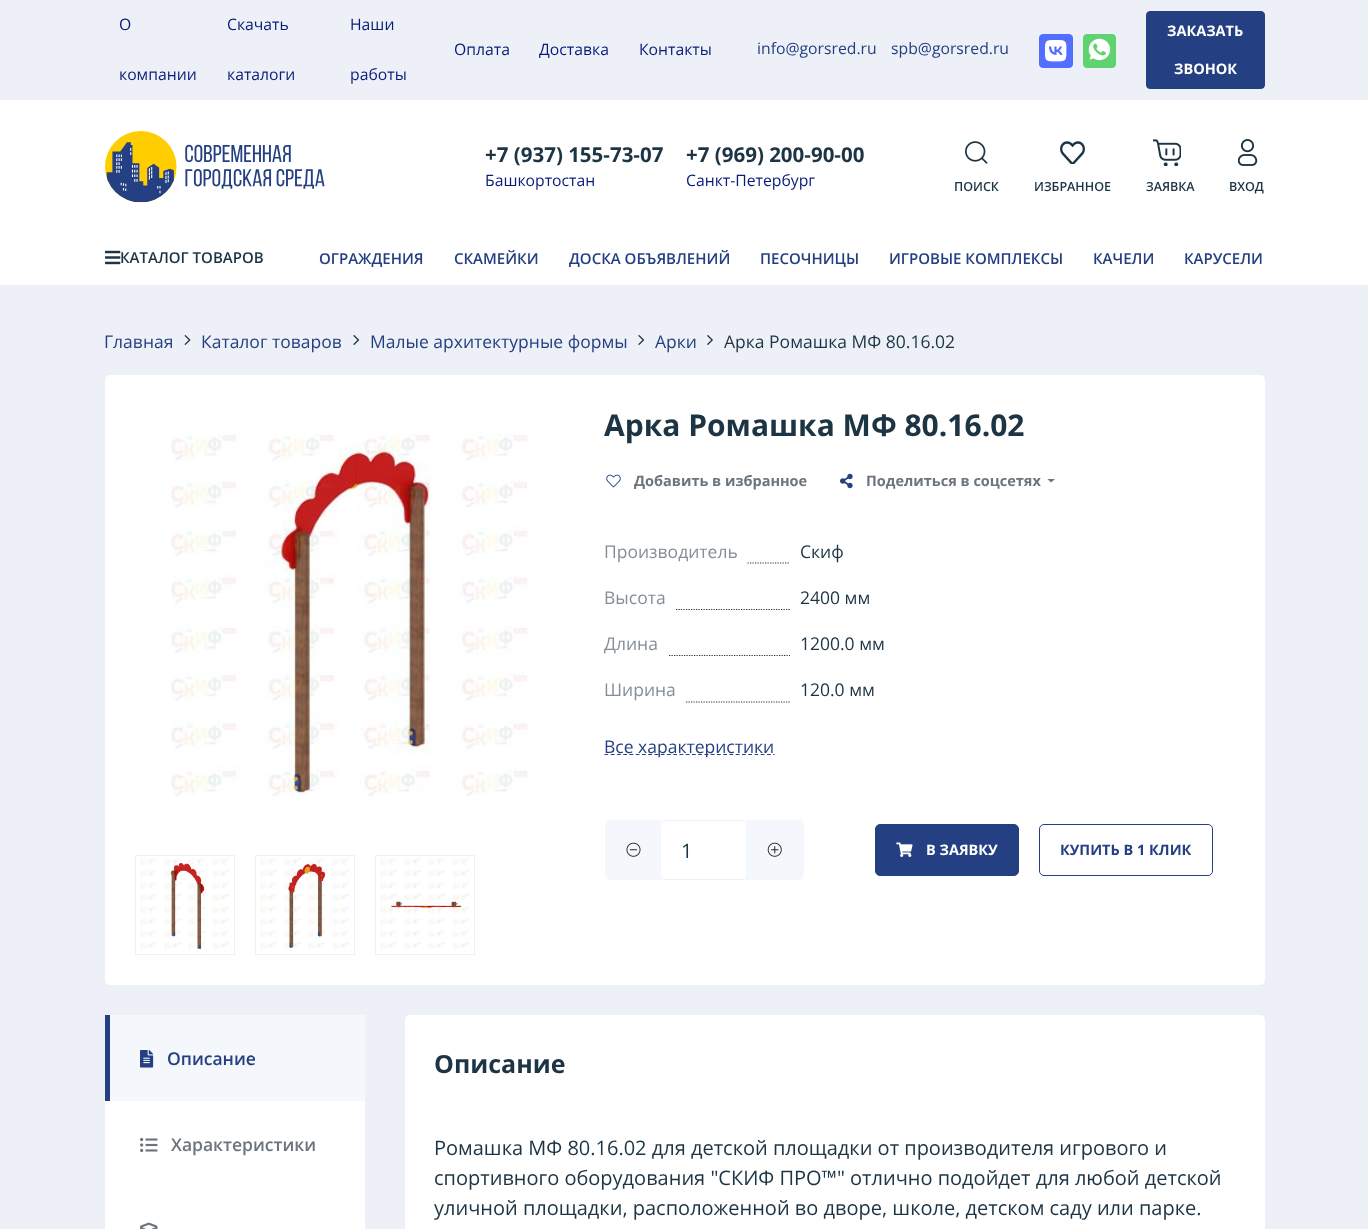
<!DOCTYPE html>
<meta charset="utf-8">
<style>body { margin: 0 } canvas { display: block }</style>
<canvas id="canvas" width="1368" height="1229"></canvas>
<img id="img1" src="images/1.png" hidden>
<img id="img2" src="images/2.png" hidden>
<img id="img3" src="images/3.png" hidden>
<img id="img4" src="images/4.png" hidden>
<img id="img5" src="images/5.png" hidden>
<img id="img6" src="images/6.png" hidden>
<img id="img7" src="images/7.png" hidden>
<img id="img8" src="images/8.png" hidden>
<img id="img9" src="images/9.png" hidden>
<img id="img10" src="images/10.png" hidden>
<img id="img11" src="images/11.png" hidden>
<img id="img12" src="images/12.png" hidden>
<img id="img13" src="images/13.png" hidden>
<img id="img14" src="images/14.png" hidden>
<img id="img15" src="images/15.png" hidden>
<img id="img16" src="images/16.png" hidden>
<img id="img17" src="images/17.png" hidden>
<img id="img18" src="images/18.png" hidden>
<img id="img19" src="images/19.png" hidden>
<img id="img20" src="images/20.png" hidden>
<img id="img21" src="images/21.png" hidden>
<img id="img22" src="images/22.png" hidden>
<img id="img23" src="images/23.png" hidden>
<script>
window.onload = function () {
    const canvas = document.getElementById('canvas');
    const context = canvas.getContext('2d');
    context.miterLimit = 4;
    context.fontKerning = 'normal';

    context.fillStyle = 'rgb(237, 241, 247)';
    context.fillRect(0, 0, 1368, 1229);
    context.drawImage(document.getElementById('img1'), 1039, 34, 34, 34);
    context.drawImage(document.getElementById('img2'), 1083, 34, 33, 34);
    context.fillStyle = 'rgb(37, 64, 130)';
    context.beginPath();
    context.roundRect(1146.5, 11.5, 118, 77, 3.5);
    context.fill();
    context.strokeStyle = 'rgb(37, 64, 130)';
    context.stroke();
    context.fillStyle = 'rgb(255, 255, 255)';
    context.fillRect(0, 100, 1368, 185);
    context.drawImage(document.getElementById('img3'), 105, 131, 220, 72);
    context.drawImage(document.getElementById('img4'), 965, 141, 23, 23);
    context.drawImage(document.getElementById('img5'), 1060, 141, 25, 23);
    context.drawImage(document.getElementById('img6'), 1153, 139, 28, 27);
    context.drawImage(document.getElementById('img7'), 1238, 139, 20, 27);
    context.drawImage(document.getElementById('img8'), 105, 250, 16, 15);
    context.drawImage(document.getElementById('img9'), 184, 335, 7, 10);
    context.drawImage(document.getElementById('img10'), 353, 335, 7, 10);
    context.drawImage(document.getElementById('img10'), 638, 335, 7, 10);
    context.drawImage(document.getElementById('img11'), 707, 335, 6, 10);
    context.beginPath();
    context.roundRect(105, 375, 1160, 610, 5);
    context.fill();
    context.drawImage(document.getElementById('img12'), 171, 434, 357, 363);
    context.strokeStyle = 'rgb(237, 241, 247)';
    context.strokeRect(135.5, 855.5, 99, 99);
    context.drawImage(document.getElementById('img13'), 140, 858, 90, 95);
    context.strokeRect(255.5, 855.5, 99, 99);
    context.drawImage(document.getElementById('img14'), 260, 858, 90, 91);
    context.strokeRect(375.5, 855.5, 99, 99);
    context.drawImage(document.getElementById('img15'), 380, 858, 90, 91);
    context.drawImage(document.getElementById('img16'), 606, 474, 15, 14);
    context.drawImage(document.getElementById('img17'), 840, 473, 13, 16);
    context.fillStyle = 'rgb(108, 117, 125)';
    context.beginPath();
    context.moveTo(1047.5, 479);
    context.lineTo(1055, 479);
    context.lineTo(1051, 482.5);
    context.closePath();
    context.fill();
    context.beginPath();
    context.moveTo(747.5, 563);
    context.lineTo(790, 563);
    context.strokeStyle = 'rgb(28, 52, 67)';
    context.lineWidth = 1.2;
    context.setLineDash([1.25, 1.25]);
    context.stroke();
    context.beginPath();
    context.moveTo(676, 609.5);
    context.lineTo(790, 609.5);
    context.stroke();
    context.beginPath();
    context.moveTo(669, 655.5);
    context.lineTo(790, 655.5);
    context.stroke();
    context.beginPath();
    context.moveTo(686, 702);
    context.lineTo(790, 702);
    context.stroke();
    context.beginPath();
    context.moveTo(604.5, 754.5);
    context.lineTo(774.5, 754.5);
    context.strokeStyle = 'rgb(37, 64, 130)';
    context.setLineDash([3.75, 2.5]);
    context.stroke();
    context.beginPath();
    context.roundRect(660.5, 820.5, 87, 59, 4.5);
    context.strokeStyle = 'rgb(237, 241, 247)';
    context.lineWidth = 1;
    context.setLineDash([]);
    context.stroke();
    context.fillStyle = 'rgb(244, 247, 251)';
    context.beginPath();
    context.roundRect(605.5, 820.5, 55, 59, [4.5, 0, 0, 4.5]);
    context.fill();
    context.strokeStyle = 'rgb(244, 247, 251)';
    context.stroke();
    context.drawImage(document.getElementById('img18'), 626, 842, 15, 15);
    context.beginPath();
    context.roundRect(746.5, 820.5, 57, 59, [0, 4.5, 4.5, 0]);
    context.fill();
    context.stroke();
    context.drawImage(document.getElementById('img19'), 767, 842, 15, 15);
    context.fillStyle = 'rgb(37, 64, 130)';
    context.beginPath();
    context.roundRect(875.5, 824.5, 143, 51, 4.5);
    context.fill();
    context.strokeStyle = 'rgb(37, 64, 130)';
    context.stroke();
    context.drawImage(document.getElementById('img20'), 896, 842, 17, 15);
    context.beginPath();
    context.roundRect(1039.5, 824.5, 173, 51, 4.5);
    context.stroke();
    context.fillStyle = 'rgb(244, 247, 251)';
    context.fillRect(110, 1015, 255, 86);
    context.fillStyle = 'rgb(37, 64, 130)';
    context.fillRect(105, 1015, 5, 86);
    context.drawImage(document.getElementById('img21'), 140, 1050, 14, 18);
    context.fillStyle = 'rgb(255, 255, 255)';
    context.fillRect(105, 1101, 260, 128);
    context.drawImage(document.getElementById('img22'), 140, 1137, 18, 16);
    context.drawImage(document.getElementById('img23'), 140, 1222, 18, 7);
    context.beginPath();
    context.roundRect(405, 1015, 860, 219, 5);
    context.fill();
    context.font = '15.75px Open Sans';
    context.fillStyle = 'rgb(9, 28, 122)';
    context.fillText('О', 119, 30);
    context.fillText('компании', 119, 80);
    context.fillText('Скачать', 227, 30);
    context.fillText('каталоги', 227, 80);
    context.fillText('Наши', 350, 30);
    context.fillText('работы', 350, 80);
    context.fillText('Оплата', 454, 55);
    context.fillText('Доставка', 539, 55);
    context.fillText('Контакты', 639, 55);
    context.fillStyle = 'rgb(37, 64, 130)';
    context.fillText('info@gorsred.ru', 757, 54);
    context.fillText('spb@gorsred.ru', 891, 54);
    context.font = 'bold 14.5px Open Sans';
    context.fillStyle = 'rgb(255, 255, 255)';
    context.fillText('ЗАКАЗАТЬ', 1167, 36);
    context.fillText('ЗВОНОК', 1174, 74);
    context.font = 'bold 20.5px Open Sans';
    context.fillStyle = 'rgb(28, 52, 67)';
    context.fillText('+7 (937) 155-73-07', 485, 162);
    context.font = '15.75px Open Sans';
    context.fillStyle = 'rgb(9, 28, 122)';
    context.fillText('Башкортостан', 485, 186);
    context.font = 'bold 20.5px Open Sans';
    context.fillStyle = 'rgb(28, 52, 67)';
    context.fillText('+7 (969) 200-90-00', 686, 162);
    context.font = '15.75px Open Sans';
    context.fillStyle = 'rgb(9, 28, 122)';
    context.fillText('Санкт-Петербург', 686, 186);
    context.font = '600 12.5px Open Sans';
    context.fillStyle = 'rgb(28, 52, 67)';
    context.fillText('ПОИСК', 954, 191);
    context.fillText('ИЗБРАННОЕ', 1034, 191);
    context.fillText('ЗАЯВКА', 1146, 191);
    context.fillText('ВХОД', 1229, 191);
    context.font = '600 15px Open Sans';
    context.fillText('КАТАЛОГ ТОВАРОВ', 120, 263);
    context.fillStyle = 'rgb(37, 64, 130)';
    context.fillText('ОГРАЖДЕНИЯ', 319, 264);
    context.fillText('СКАМЕЙКИ', 454, 264);
    context.fillText('ДОСКА ОБЪЯВЛЕНИЙ', 569, 264);
    context.fillText('ПЕСОЧНИЦЫ', 760, 264);
    context.fillText('ИГРОВЫЕ КОМПЛЕКСЫ', 889, 264);
    context.fillText('КАЧЕЛИ', 1093, 264);
    context.fillText('КАРУСЕЛИ', 1184, 264);
    context.font = '17.5px Open Sans';
    context.fillText('Главная', 104, 348);
    context.fillText('Каталог товаров', 201, 348);
    context.fillText('Малые архитектурные формы', 370, 348);
    context.fillText('Арки', 655, 348);
    context.fillStyle = 'rgb(28, 52, 67)';
    context.fillText('Арка Ромашка МФ 80.16.02', 724, 348);
    context.font = 'bold 30px Open Sans';
    context.fillText('Арка Ромашка МФ 80.16.02', 604, 436);
    context.font = 'bold 14.5px Open Sans';
    context.fillStyle = 'rgb(108, 117, 125)';
    context.fillText('Добавить в избранное', 634, 486);
    context.fillText('Поделиться в соцсетях', 866, 486);
    context.font = '17.5px Open Sans';
    context.fillStyle = 'rgb(132, 142, 153)';
    context.fillText('Производитель', 604, 558);
    context.fillStyle = 'rgb(28, 52, 67)';
    context.fillText('Скиф', 800, 558);
    context.fillStyle = 'rgb(132, 142, 153)';
    context.fillText('Высота', 604, 604);
    context.fillStyle = 'rgb(28, 52, 67)';
    context.fillText('2400 мм', 800, 604);
    context.fillStyle = 'rgb(132, 142, 153)';
    context.fillText('Длина', 604, 650);
    context.fillStyle = 'rgb(28, 52, 67)';
    context.fillText('1200.0 мм', 800, 650);
    context.fillStyle = 'rgb(132, 142, 153)';
    context.fillText('Ширина', 604, 696);
    context.fillStyle = 'rgb(28, 52, 67)';
    context.fillText('120.0 мм', 800, 696);
    context.fillStyle = 'rgb(37, 64, 130)';
    context.fillText('Все характеристики', 604, 753);
    context.font = '20px Open Sans';
    context.fillStyle = 'rgb(28, 52, 67)';
    context.fillText('1', 681, 858);
    context.font = 'bold 14.5px Open Sans';
    context.fillStyle = 'rgb(255, 255, 255)';
    context.fillText('В ЗАЯВКУ', 926, 855);
    context.fillStyle = 'rgb(37, 64, 130)';
    context.fillText('КУПИТЬ В 1 КЛИК', 1060, 855);
    context.font = '600 17.5px Open Sans';
    context.fillText('Описание', 167, 1065);
    context.fillStyle = 'rgb(108, 117, 125)';
    context.fillText('Характеристики', 171, 1151);
    context.font = 'bold 25px Open Sans';
    context.fillStyle = 'rgb(28, 52, 67)';
    context.fillText('Описание', 434, 1073);
    context.font = '20px Open Sans';
    context.fillText('Ромашка МФ 80.16.02 для детской площадки от производителя игрового и', 434, 1155);
    context.fillText('спортивного оборудования "СКИФ ПРО™" отлично подойдет для любой детской', 434, 1185);
    context.fillText('уличной площадки, расположенной во дворе, школе, детском саду или парке.', 434, 1215);
};
</script>
